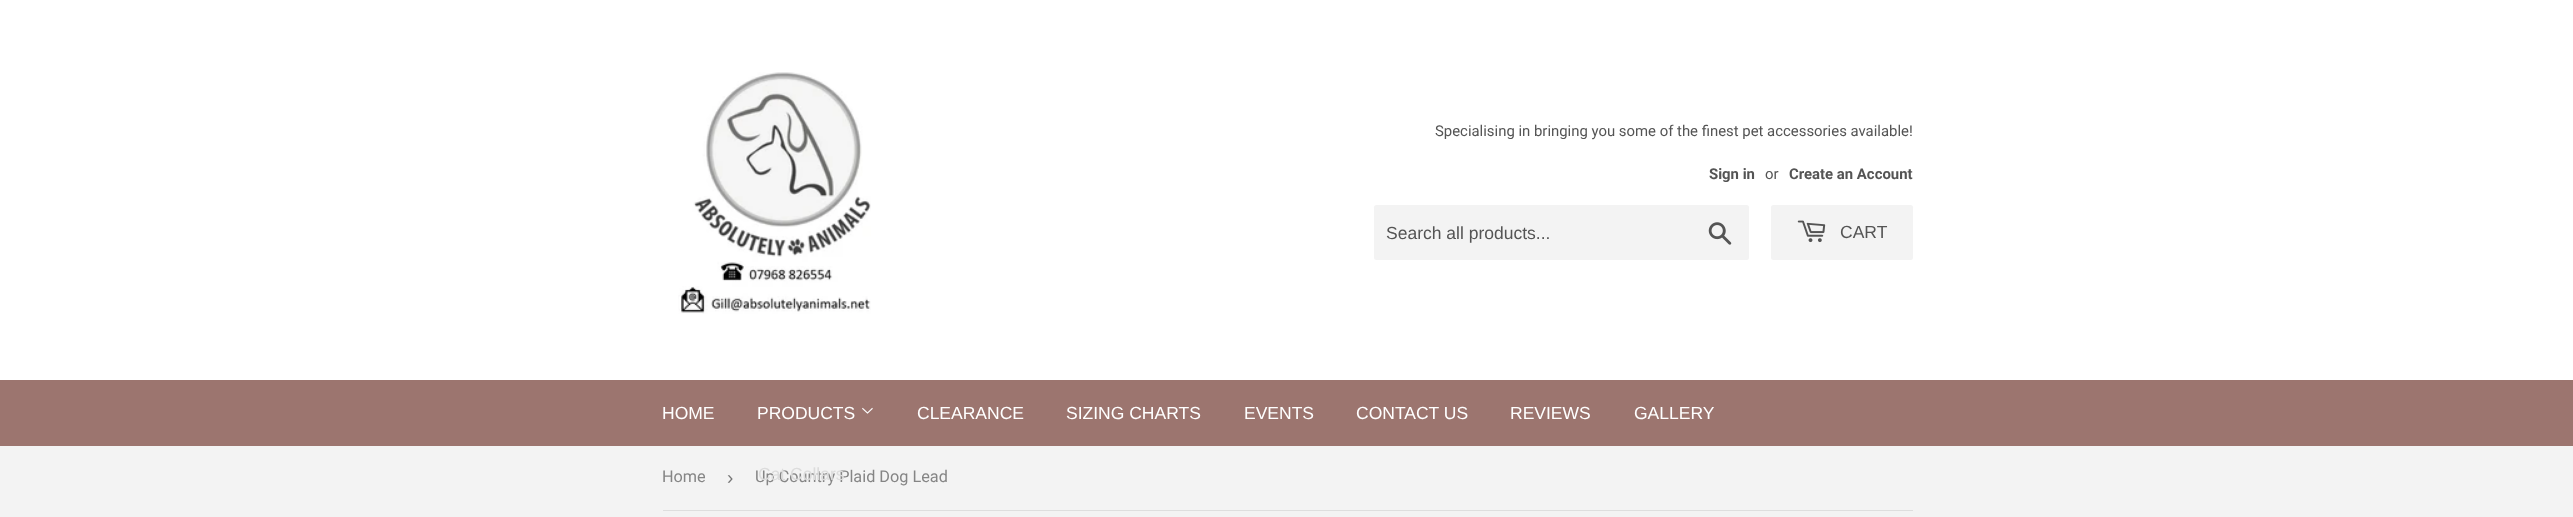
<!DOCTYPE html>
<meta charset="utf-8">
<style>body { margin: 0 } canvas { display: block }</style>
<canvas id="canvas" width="2573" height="517"></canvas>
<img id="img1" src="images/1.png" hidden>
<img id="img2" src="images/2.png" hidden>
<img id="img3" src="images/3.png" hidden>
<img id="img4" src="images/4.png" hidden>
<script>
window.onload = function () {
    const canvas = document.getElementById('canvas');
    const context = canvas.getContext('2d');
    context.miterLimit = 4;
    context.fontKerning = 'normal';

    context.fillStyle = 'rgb(243, 243, 243)';
    context.fillRect(0, 0, 2573, 517);
    context.fillStyle = 'rgb(255, 255, 255)';
    context.fillRect(0, 0, 2573, 380);
    context.drawImage(document.getElementById('img1'), 678, 72, 193, 242);
    context.fillStyle = 'rgb(243, 243, 243)';
    context.beginPath();
    context.roundRect(1374, 205, 375, 55, 2.5);
    context.fill();
    context.drawImage(document.getElementById('img2'), 1708, 222, 24, 23);
    context.beginPath();
    context.roundRect(1771, 205, 142, 55, 2.5);
    context.fill();
    context.drawImage(document.getElementById('img3'), 1797, 220, 29, 23);
    context.fillStyle = 'rgb(156, 117, 111)';
    context.fillRect(0, 380, 2573, 66);
    context.drawImage(document.getElementById('img4'), 862, 407, 11, 7);
    context.fillStyle = 'rgb(222, 222, 222)';
    context.fillRect(663, 510, 1250, 1);
    context.font = '14.9px Roboto';
    context.fillStyle = 'rgb(84, 84, 84)';
    context.fillText('Specialising in bringing you some of the finest pet accessories available!', 1435, 136);
    context.font = 'bold 14.9px Roboto';
    context.fillText('Sign in', 1709, 179);
    context.font = '14.9px Roboto';
    context.fillText('or', 1765, 179);
    context.font = 'bold 14.9px Roboto';
    context.fillText('Create an Account', 1789, 179);
    context.font = '17.5px Liberation Sans';
    context.fillText('Search all products...', 1386, 239);
    context.fillText('CART', 1840, 238);
    context.fillStyle = 'rgb(255, 255, 255)';
    context.fillText('HOME', 662, 419);
    context.fillText('PRODUCTS', 757, 419);
    context.fillText('CLEARANCE', 917, 419);
    context.fillText('SIZING CHARTS', 1066, 419);
    context.fillText('EVENTS', 1244, 419);
    context.fillText('CONTACT US', 1356, 419);
    context.fillText('REVIEWS', 1510, 419);
    context.fillText('GALLERY', 1634, 419);
    context.font = '16.25px Roboto';
    context.fillStyle = 'rgb(133, 133, 133)';
    context.fillText('Home', 662, 482);
    context.font = '19px Liberation Sans';
    context.fillStyle = 'rgb(118, 118, 118)';
    context.fillText('›', 727, 484);
    context.font = '16.25px Roboto';
    context.fillStyle = 'rgb(133, 133, 133)';
    context.fillText('Up Country Plaid Dog Lead', 755, 482);
    context.font = '17.5px Liberation Sans';
    context.fillStyle = 'rgb(220, 220, 220)';
    context.fillText('Cat Collars', 758, 480);
};
</script>
